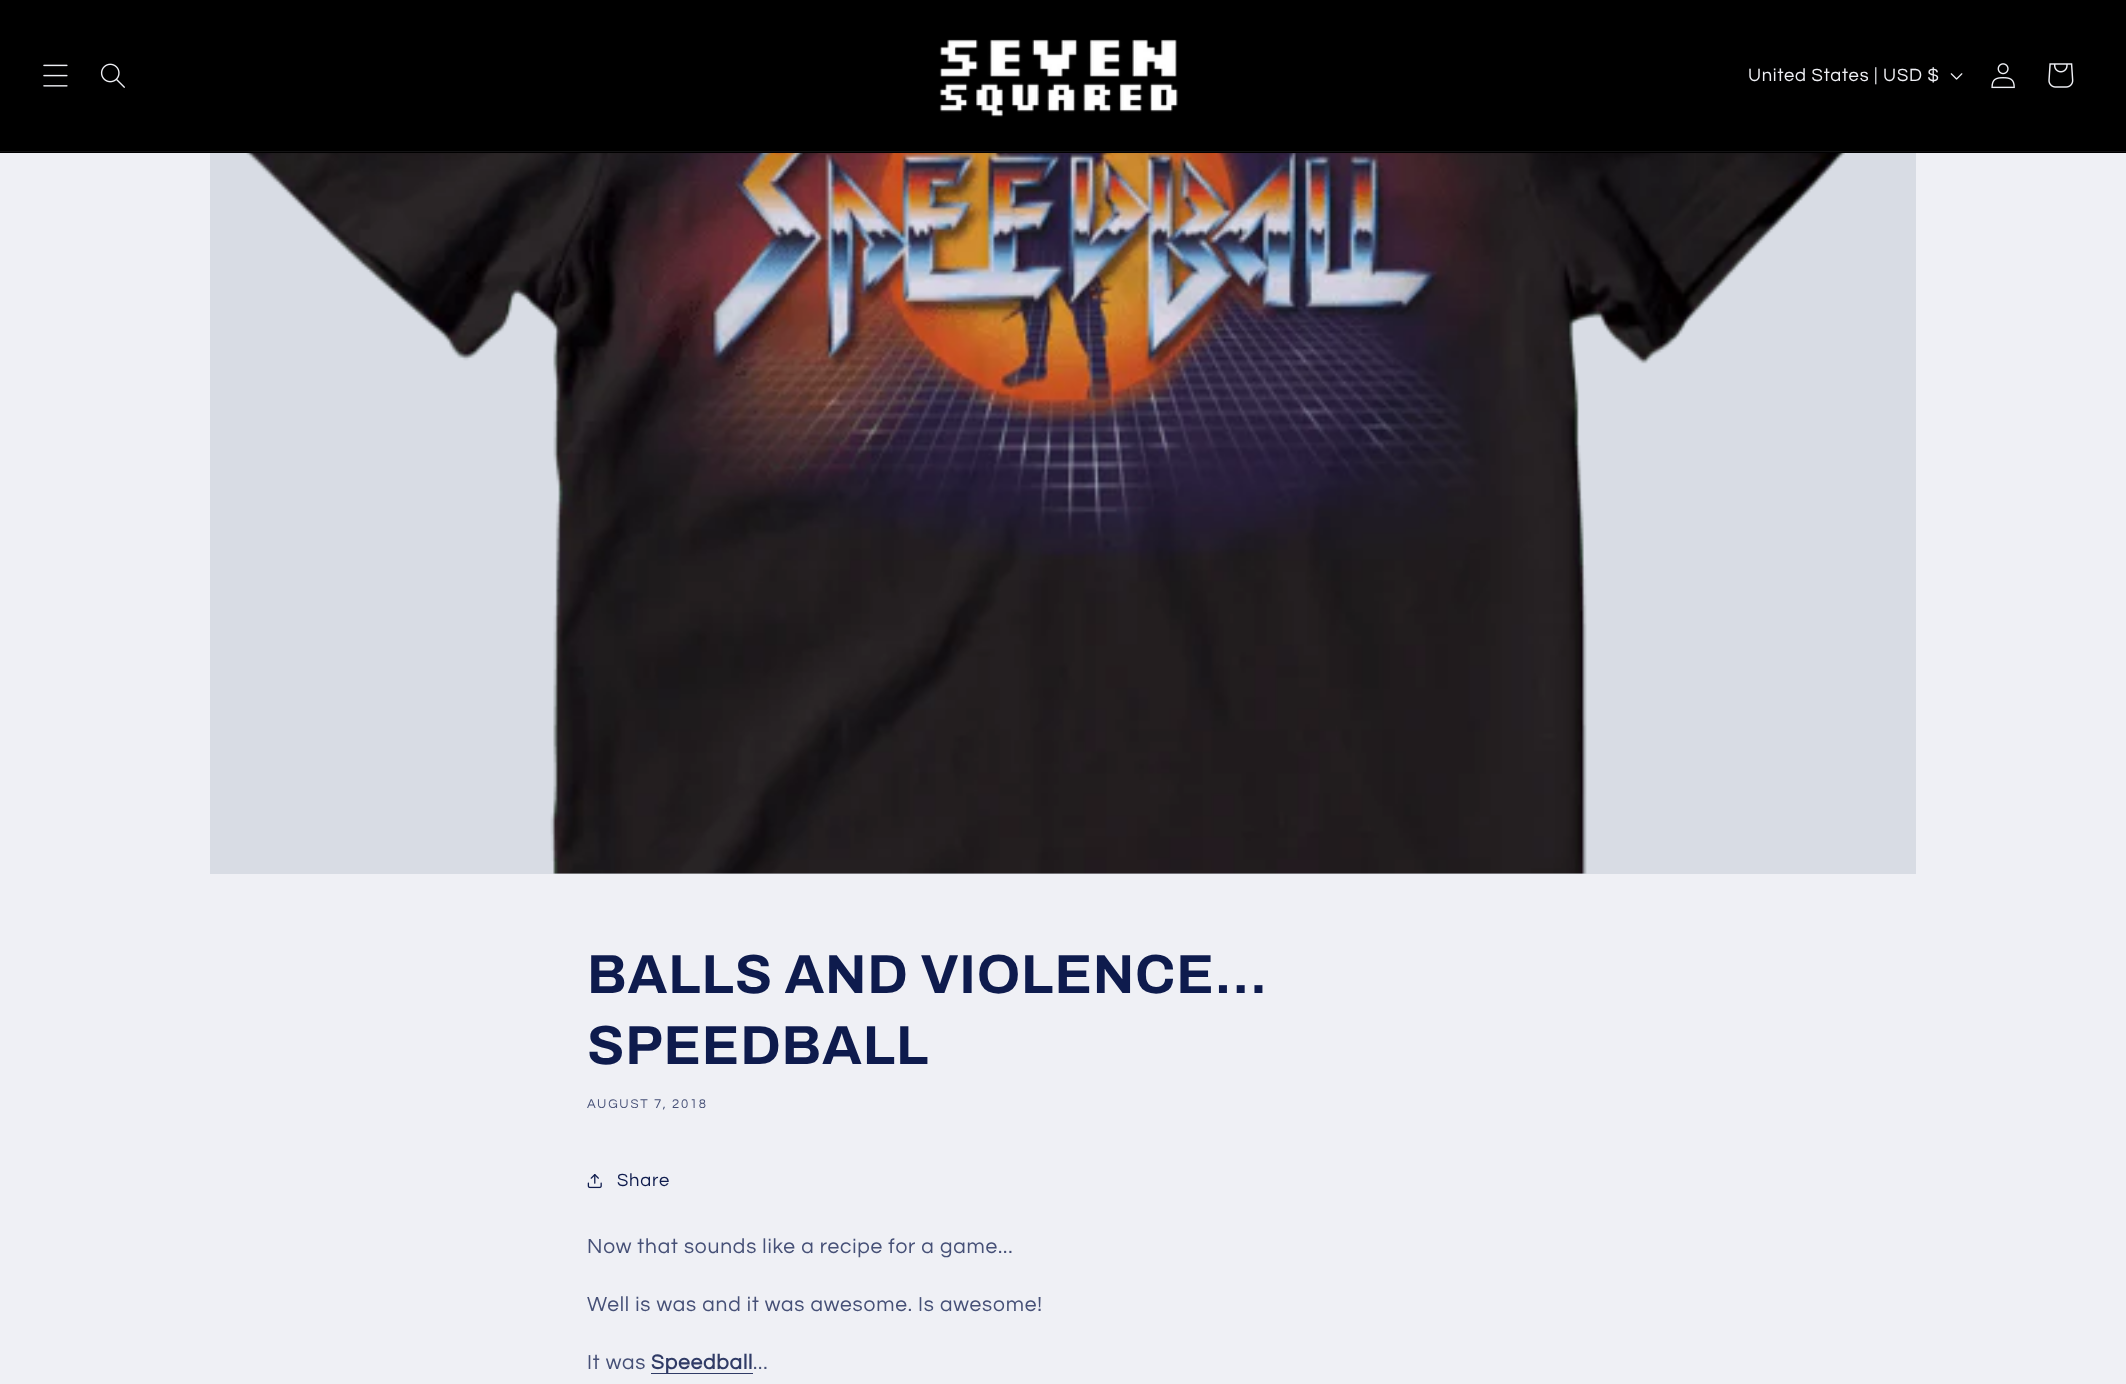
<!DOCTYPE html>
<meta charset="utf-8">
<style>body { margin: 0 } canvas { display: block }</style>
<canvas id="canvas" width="2126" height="1384"></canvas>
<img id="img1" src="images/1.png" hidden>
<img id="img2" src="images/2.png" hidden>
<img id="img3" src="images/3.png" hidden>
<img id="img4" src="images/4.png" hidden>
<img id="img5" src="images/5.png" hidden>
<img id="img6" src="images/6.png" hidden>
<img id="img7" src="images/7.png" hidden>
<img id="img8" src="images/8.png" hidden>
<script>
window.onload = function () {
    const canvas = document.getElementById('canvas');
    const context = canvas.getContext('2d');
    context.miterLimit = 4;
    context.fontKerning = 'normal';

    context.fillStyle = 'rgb(239, 240, 245)';
    context.fillRect(0, 0, 2126, 1384);
    context.fillStyle = 'rgb(0, 0, 0)';
    context.fillRect(0, 0, 2126, 153);
    context.fillStyle = 'rgb(19, 19, 20)';
    context.fillRect(0, 151, 2126, 1);
    context.drawImage(document.getElementById('img1'), 43, 64, 25, 23);
    context.drawImage(document.getElementById('img2'), 100, 63, 25, 25);
    context.drawImage(document.getElementById('img3'), 939, 39, 239, 78);
    context.drawImage(document.getElementById('img4'), 1950, 73, 13, 7);
    context.drawImage(document.getElementById('img5'), 1991, 63, 24, 26);
    context.drawImage(document.getElementById('img6'), 2048, 63, 26, 25);
    context.fillStyle = 'rgb(216, 220, 228)';
    context.fillRect(210, 153, 1706, 721);
    context.drawImage(document.getElementById('img7'), 246, 153, 1599, 721);
    context.drawImage(document.getElementById('img8'), 587, 1174, 15, 15);
    context.fillStyle = 'rgb(48, 59, 102)';
    context.fillRect(651, 1373, 102, 1);
    context.letterSpacing = '0.8px';
    context.font = '18.4px Questrial';
    context.fillStyle = 'rgb(239, 240, 245)';
    context.fillText('United States | USD $', 1748, 81);
    context.font = 'bold 55px Archivo';
    context.fillStyle = 'rgb(14, 27, 77)';
    context.fillText('BALLS AND VIOLENCE...', 587, 993);
    context.fillText('SPEEDBALL', 587, 1064);
    context.letterSpacing = '1.75px';
    context.font = '13.1px Questrial';
    context.fillStyle = 'rgb(70, 80, 119)';
    context.fillText('AUGUST 7, 2018', 587, 1108);
    context.letterSpacing = '0.8px';
    context.font = '18.4px Questrial';
    context.fillStyle = 'rgb(14, 27, 77)';
    context.fillText('Share', 617, 1186);
    context.font = '21px Questrial';
    context.fillStyle = 'rgb(70, 80, 119)';
    context.fillText('Now that sounds like a recipe for a game...', 587, 1253);
    context.fillText('Well is was and it was awesome. Is awesome!', 587, 1311);
    context.fillText('It was', 587, 1369);
    context.font = 'bold 21px Questrial';
    context.fillStyle = 'rgb(48, 59, 102)';
    context.fillText('Speedball', 651, 1369);
    context.font = '21px Questrial';
    context.fillStyle = 'rgb(70, 80, 119)';
    context.fillText('...', 753, 1369);
};
</script>
